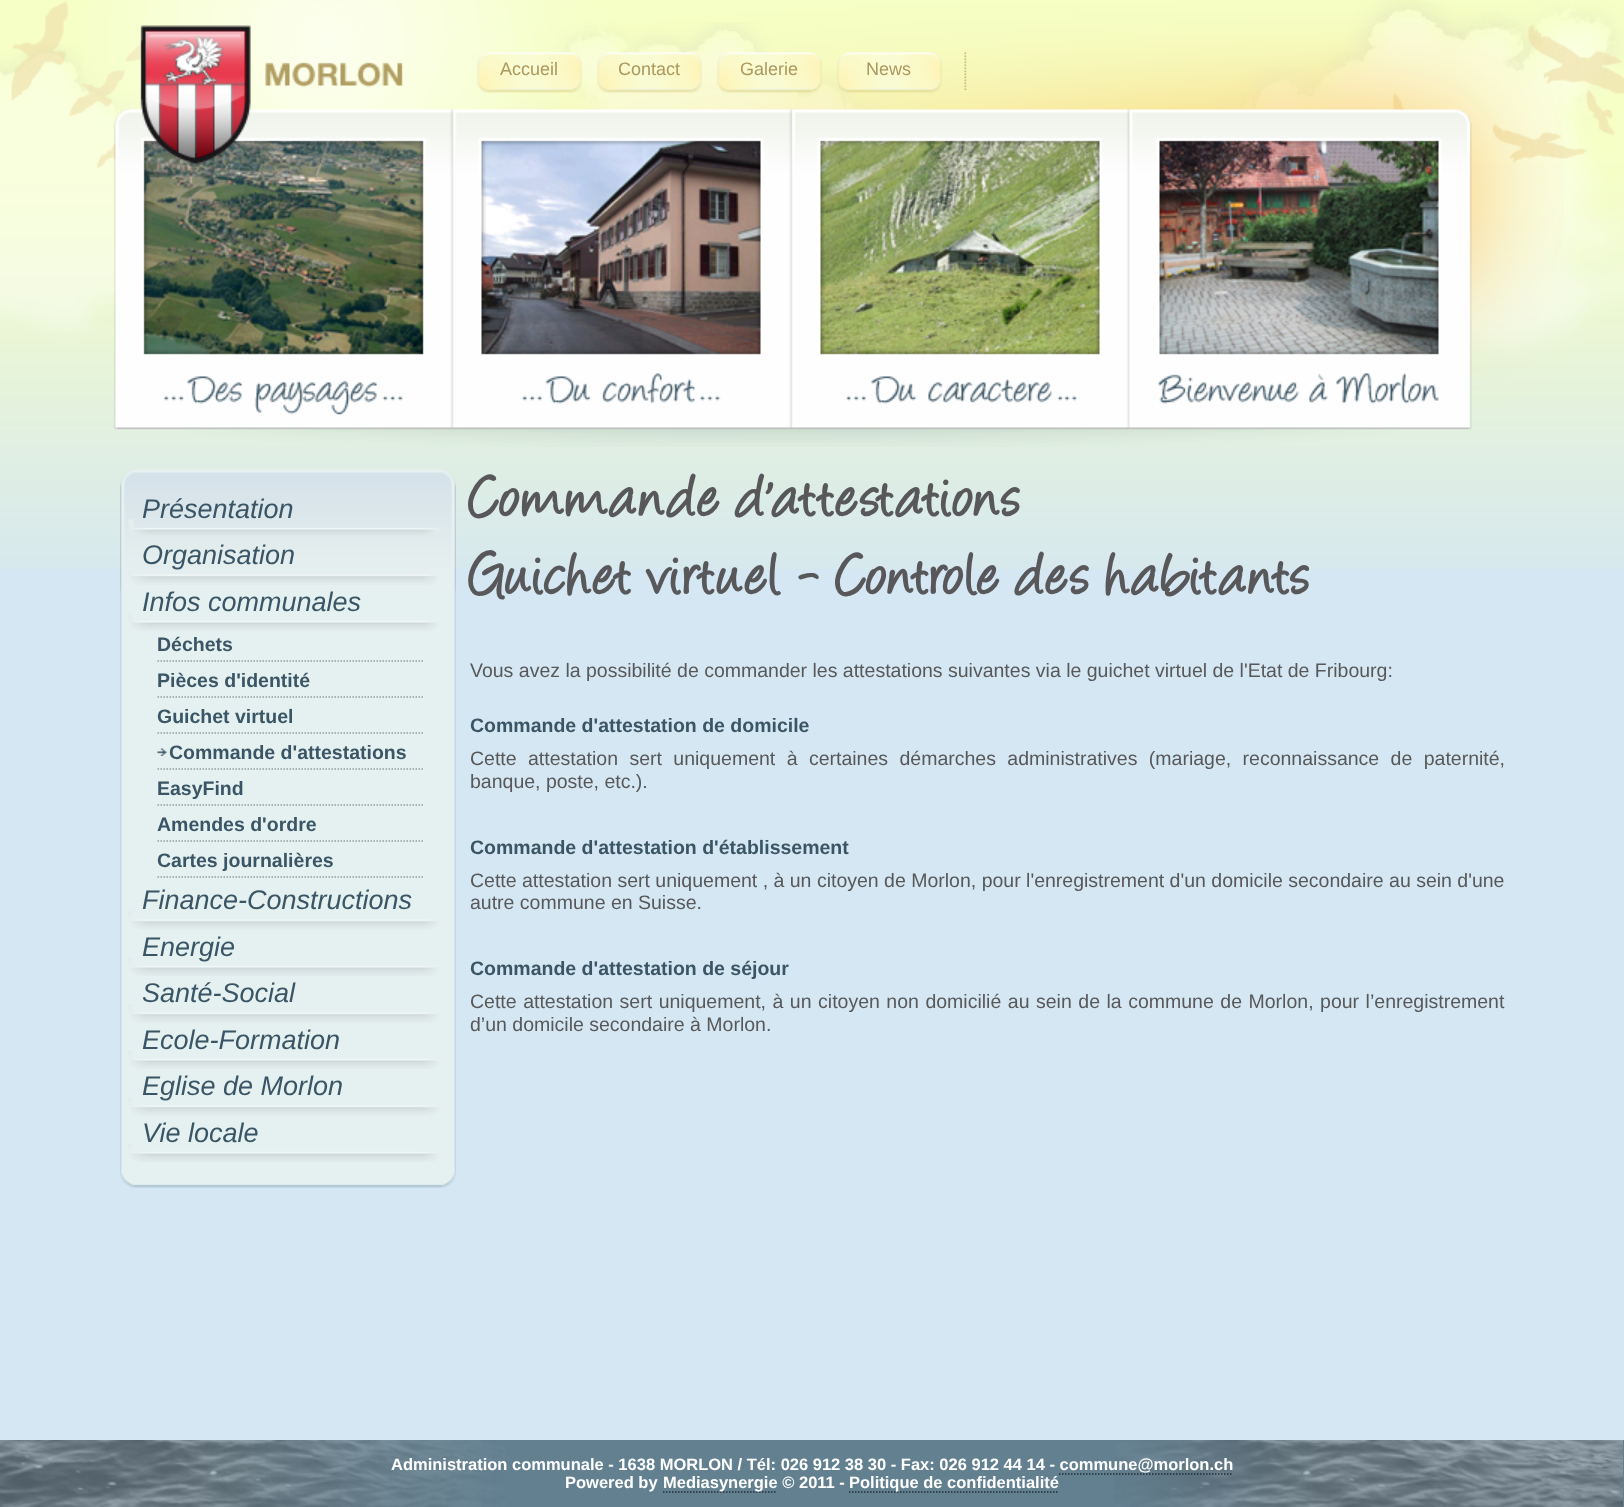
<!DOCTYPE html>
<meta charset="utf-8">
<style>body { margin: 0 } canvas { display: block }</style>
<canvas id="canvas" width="1624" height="1507"></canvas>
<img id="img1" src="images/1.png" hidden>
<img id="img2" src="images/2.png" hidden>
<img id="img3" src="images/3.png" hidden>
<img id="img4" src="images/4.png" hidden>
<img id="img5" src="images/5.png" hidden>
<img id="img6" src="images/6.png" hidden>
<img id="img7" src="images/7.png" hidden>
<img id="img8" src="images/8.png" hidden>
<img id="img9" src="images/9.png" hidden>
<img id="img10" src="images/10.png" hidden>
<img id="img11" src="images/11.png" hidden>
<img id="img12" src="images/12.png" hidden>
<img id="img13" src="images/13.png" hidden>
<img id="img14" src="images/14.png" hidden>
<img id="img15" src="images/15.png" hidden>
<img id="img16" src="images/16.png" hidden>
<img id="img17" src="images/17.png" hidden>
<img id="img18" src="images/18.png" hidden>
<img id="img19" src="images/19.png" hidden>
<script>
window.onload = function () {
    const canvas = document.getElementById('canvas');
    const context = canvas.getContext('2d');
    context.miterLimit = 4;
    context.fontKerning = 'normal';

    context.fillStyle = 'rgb(212, 231, 242)';
    context.fillRect(0, 0, 1624, 1507);
    context.drawImage(document.getElementById('img1'), 0, 0, 1624, 569);
    context.drawImage(document.getElementById('img2'), 0, 0, 1624, 369);
    context.drawImage(document.getElementById('img3'), 82, 0, 1482, 447);
    context.drawImage(document.getElementById('img4'), 477, 52, 105, 41);
    context.drawImage(document.getElementById('img5'), 597, 52, 105, 41);
    context.drawImage(document.getElementById('img6'), 717, 52, 105, 41);
    context.drawImage(document.getElementById('img7'), 837, 52, 105, 41);
    context.drawImage(document.getElementById('img8'), 964, 52, 3, 38);
    context.drawImage(document.getElementById('img9'), 120, 469, 336, 17);
    context.drawImage(document.getElementById('img10'), 120, 486, 336, 678);
    context.drawImage(document.getElementById('img11'), 120, 486, 336, 105);
    context.drawImage(document.getElementById('img12'), 128, 519, 313, 16);
    context.drawImage(document.getElementById('img13'), 129, 571, 308, 14);
    context.drawImage(document.getElementById('img14'), 128, 612, 311, 19);
    context.beginPath();
    context.moveTo(157.5, 661);
    context.lineTo(423, 661);
    context.strokeStyle = 'rgb(144, 159, 151)';
    context.lineWidth = 1.5;
    context.setLineDash([1.5, 1.5]);
    context.stroke();
    context.beginPath();
    context.moveTo(157.5, 697);
    context.lineTo(423, 697);
    context.stroke();
    context.beginPath();
    context.moveTo(157.5, 733);
    context.lineTo(423, 733);
    context.stroke();
    context.drawImage(document.getElementById('img15'), 157, 748, 10, 8);
    context.beginPath();
    context.moveTo(157.5, 769);
    context.lineTo(423, 769);
    context.stroke();
    context.beginPath();
    context.moveTo(157.5, 805);
    context.lineTo(423, 805);
    context.stroke();
    context.beginPath();
    context.moveTo(157.5, 841);
    context.lineTo(423, 841);
    context.stroke();
    context.beginPath();
    context.moveTo(157.5, 877);
    context.lineTo(423, 877);
    context.stroke();
    context.drawImage(document.getElementById('img16'), 128, 911, 311, 19);
    context.drawImage(document.getElementById('img14'), 128, 957, 311, 19);
    context.drawImage(document.getElementById('img16'), 128, 1004, 311, 19);
    context.drawImage(document.getElementById('img14'), 128, 1050, 311, 19);
    context.drawImage(document.getElementById('img16'), 128, 1097, 311, 19);
    context.drawImage(document.getElementById('img14'), 128, 1143, 311, 19);
    context.drawImage(document.getElementById('img17'), 120, 1164, 336, 24);
    context.fillStyle = 'rgb(99, 128, 145)';
    context.fillRect(0, 1440, 1624, 67);
    context.drawImage(document.getElementById('img18'), 0, 1440, 506, 67);
    context.drawImage(document.getElementById('img19'), 1114, 1440, 509, 67);
    context.beginPath();
    context.moveTo(1059, 1474);
    context.lineTo(1233, 1474);
    context.strokeStyle = 'rgb(31, 46, 55)';
    context.stroke();
    context.beginPath();
    context.moveTo(663, 1492);
    context.lineTo(777, 1492);
    context.stroke();
    context.beginPath();
    context.moveTo(849, 1492);
    context.lineTo(1059, 1492);
    context.stroke();
    context.font = '18px Liberation Sans';
    context.fillStyle = 'rgb(172, 152, 93)';
    context.fillText('Accueil', 500, 75);
    context.fillText('Contact', 618, 75);
    context.fillText('Galerie', 740, 75);
    context.fillText('News', 866, 75);
    context.font = 'italic 27px Liberation Sans';
    context.fillStyle = 'rgb(58, 85, 101)';
    context.fillText('Présentation', 142, 518);
    context.fillText('Organisation', 142, 564);
    context.fillText('Infos communales', 142, 611);
    context.font = 'bold 19.5px Liberation Sans';
    context.fillText('Déchets', 157, 651);
    context.fillText('Pièces d\'identité', 157, 687);
    context.fillText('Guichet virtuel', 157, 723);
    context.fillText('Commande d\'attestations', 169, 759);
    context.fillText('EasyFind', 157, 795);
    context.fillText('Amendes d\'ordre', 157, 831);
    context.fillText('Cartes journalières', 157, 867);
    context.font = 'italic 27px Liberation Sans';
    context.fillText('Finance-Constructions', 142, 909);
    context.fillText('Energie', 142, 956);
    context.fillText('Santé-Social', 142, 1002);
    context.fillText('Ecole-Formation', 142, 1049);
    context.fillText('Eglise de Morlon', 142, 1095);
    context.fillText('Vie locale', 142, 1142);
    context.font = 'bold 67.5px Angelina';
    context.fillStyle = 'rgb(88, 88, 90)';
    context.fillText('Commande d\'attestations', 470, 513);
    context.fillText('Guichet virtuel - Controle des habitants', 470, 591);
    context.font = '19.5px Liberation Sans';
    context.fillText('Vous avez la possibilité de commander les attestations suivantes via le guichet virtuel de l\'Etat de Fribourg:', 470, 677);
    context.font = 'bold 19.5px Liberation Sans';
    context.fillStyle = 'rgb(58, 85, 101)';
    context.fillText('Commande d\'attestation de domicile', 470, 732);
    context.wordSpacing = '6px';
    context.font = '19.5px Liberation Sans';
    context.fillStyle = 'rgb(88, 88, 90)';
    context.fillText('Cette attestation sert uniquement à certaines démarches administratives (mariage, reconnaissance de paternité,', 470, 765);
    context.wordSpacing = '0px';
    context.fillText('banque, poste, etc.).', 470, 788);
    context.font = 'bold 19.5px Liberation Sans';
    context.fillStyle = 'rgb(58, 85, 101)';
    context.fillText('Commande d\'attestation d\'établissement', 470, 854);
    context.font = '19.5px Liberation Sans';
    context.fillStyle = 'rgb(88, 88, 90)';
    context.fillText('Cette attestation sert uniquement , à un citoyen de Morlon, pour l\'enregistrement d\'un domicile secondaire au sein d\'une', 470, 887);
    context.fillText('autre commune en Suisse.', 470, 909);
    context.font = 'bold 19.5px Liberation Sans';
    context.fillStyle = 'rgb(58, 85, 101)';
    context.fillText('Commande d\'attestation de séjour', 470, 975);
    context.wordSpacing = '1.1px';
    context.font = '19.5px Liberation Sans';
    context.fillStyle = 'rgb(88, 88, 90)';
    context.fillText('Cette attestation sert uniquement, à un citoyen non domicilié au sein de la commune de Morlon, pour l’enregistrement', 470, 1008);
    context.wordSpacing = '0px';
    context.fillText('d’un domicile secondaire à Morlon.', 470, 1031);
    context.font = 'bold 16.5px Liberation Sans';
    context.fillStyle = 'rgb(255, 255, 255)';
    context.fillText('Administration communale - 1638 MORLON / Tél: 026 912 38 30 - Fax: 026 912 44 14 - commune@morlon.ch', 391, 1470);
    context.fillText('Powered by', 565, 1488);
    context.fillText('Mediasynergie © 2011 -', 663, 1488);
    context.fillText('Politique de confidentialité', 849, 1488);
};
</script>
